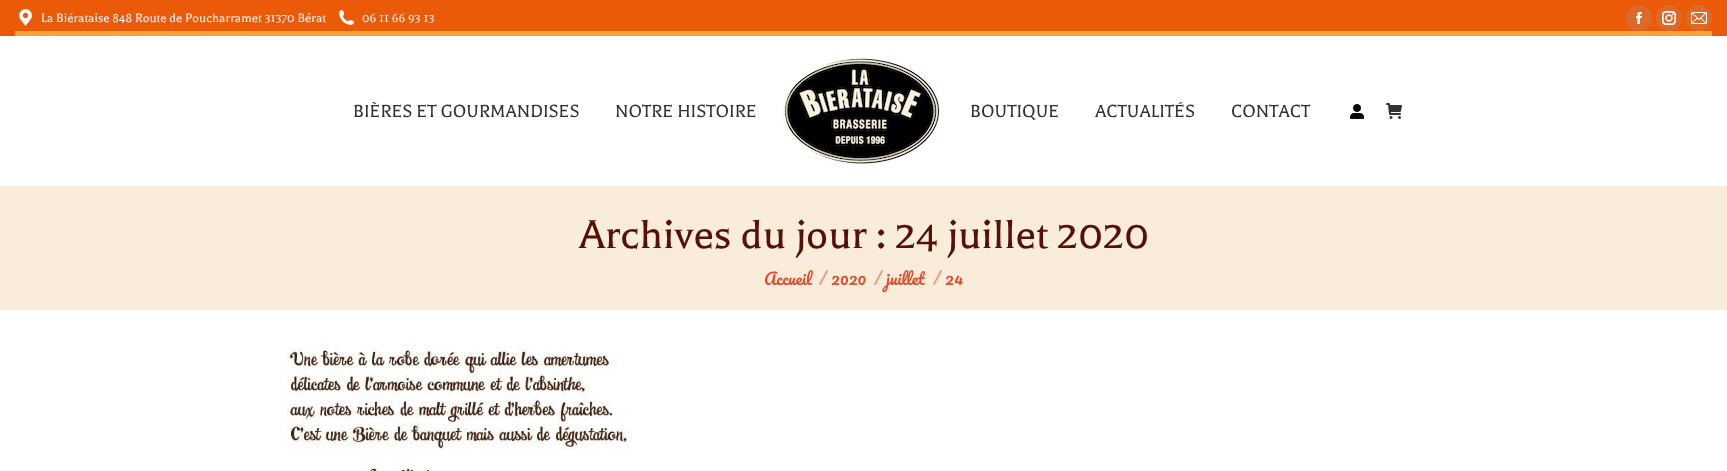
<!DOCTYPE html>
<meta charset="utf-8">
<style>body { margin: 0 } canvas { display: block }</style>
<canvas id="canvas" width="1727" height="471"></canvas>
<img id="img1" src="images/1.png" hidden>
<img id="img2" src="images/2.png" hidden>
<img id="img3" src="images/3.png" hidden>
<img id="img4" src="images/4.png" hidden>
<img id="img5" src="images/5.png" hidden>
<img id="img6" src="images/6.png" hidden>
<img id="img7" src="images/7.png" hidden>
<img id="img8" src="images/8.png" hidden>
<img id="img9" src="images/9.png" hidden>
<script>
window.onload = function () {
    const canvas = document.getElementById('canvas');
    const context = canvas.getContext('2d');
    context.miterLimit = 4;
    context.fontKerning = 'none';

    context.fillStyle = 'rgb(255, 255, 255)';
    context.fillRect(0, 0, 1727, 471);
    context.fillStyle = 'rgb(235, 90, 9)';
    context.fillRect(0, 0, 1727, 36);
    context.drawImage(document.getElementById('img1'), 19, 9, 13, 17);
    context.drawImage(document.getElementById('img2'), 339, 10, 15, 15);
    context.fillStyle = 'rgb(221, 105, 41)';
    context.beginPath();
    context.arc(1639, 18, 13, 0, 2 * Math.PI);
    context.fill();
    context.drawImage(document.getElementById('img3'), 1636, 12, 6, 12);
    context.beginPath();
    context.arc(1669, 18, 13, 0, 2 * Math.PI);
    context.fill();
    context.drawImage(document.getElementById('img4'), 1662, 11, 14, 14);
    context.beginPath();
    context.arc(1699, 18, 13, 0, 2 * Math.PI);
    context.fill();
    context.drawImage(document.getElementById('img5'), 1691, 12, 16, 12);
    context.fillStyle = 'rgb(252, 161, 56)';
    context.fillRect(15, 31, 1697, 5);
    context.drawImage(document.getElementById('img6'), 782, 58, 158, 106);
    context.drawImage(document.getElementById('img7'), 1350, 104, 14, 15);
    context.drawImage(document.getElementById('img8'), 1386, 103, 16, 16);
    context.fillStyle = 'rgb(249, 236, 219)';
    context.fillRect(0, 186, 1727, 124);
    context.drawImage(document.getElementById('img9'), 264, 320, 386, 151);
    context.font = '14px Balthazar';
    context.fillStyle = 'rgb(255, 244, 244)';
    context.fillText('La Biérataise 848 Route de Poucharramet 31370 Bérat', 41, 22);
    context.fillText('06 11 66 93 13', 362, 22);
    context.font = '20px Balthazar';
    context.fillStyle = 'rgb(51, 51, 51)';
    context.fillText('BIÈRES ET GOURMANDISES', 353, 117);
    context.fillText('NOTRE HISTOIRE', 615, 117);
    context.fillText('BOUTIQUE', 970, 117);
    context.fillText('ACTUALITÉS', 1095, 117);
    context.fillText('CONTACT', 1231, 117);
    context.font = '46px Balthazar';
    context.fillStyle = 'rgb(85, 16, 7)';
    context.fillText('Archives du jour : 24 juillet 2020', 579, 248);
    context.font = '16px Pacifico';
    context.fillStyle = 'rgb(221, 78, 48)';
    context.fillText('Accueil', 764, 285);
    context.fillStyle = 'rgb(235, 157, 134)';
    context.fillText('/', 819, 285);
    context.fillStyle = 'rgb(221, 78, 48)';
    context.fillText('2020', 831, 285);
    context.fillText('juillet', 886, 285);
    context.fillStyle = 'rgb(235, 157, 134)';
    context.fillText('/', 874, 285);
    context.fillText('/', 933, 285);
    context.fillStyle = 'rgb(221, 78, 48)';
    context.fillText('24', 945, 285);
};
</script>
